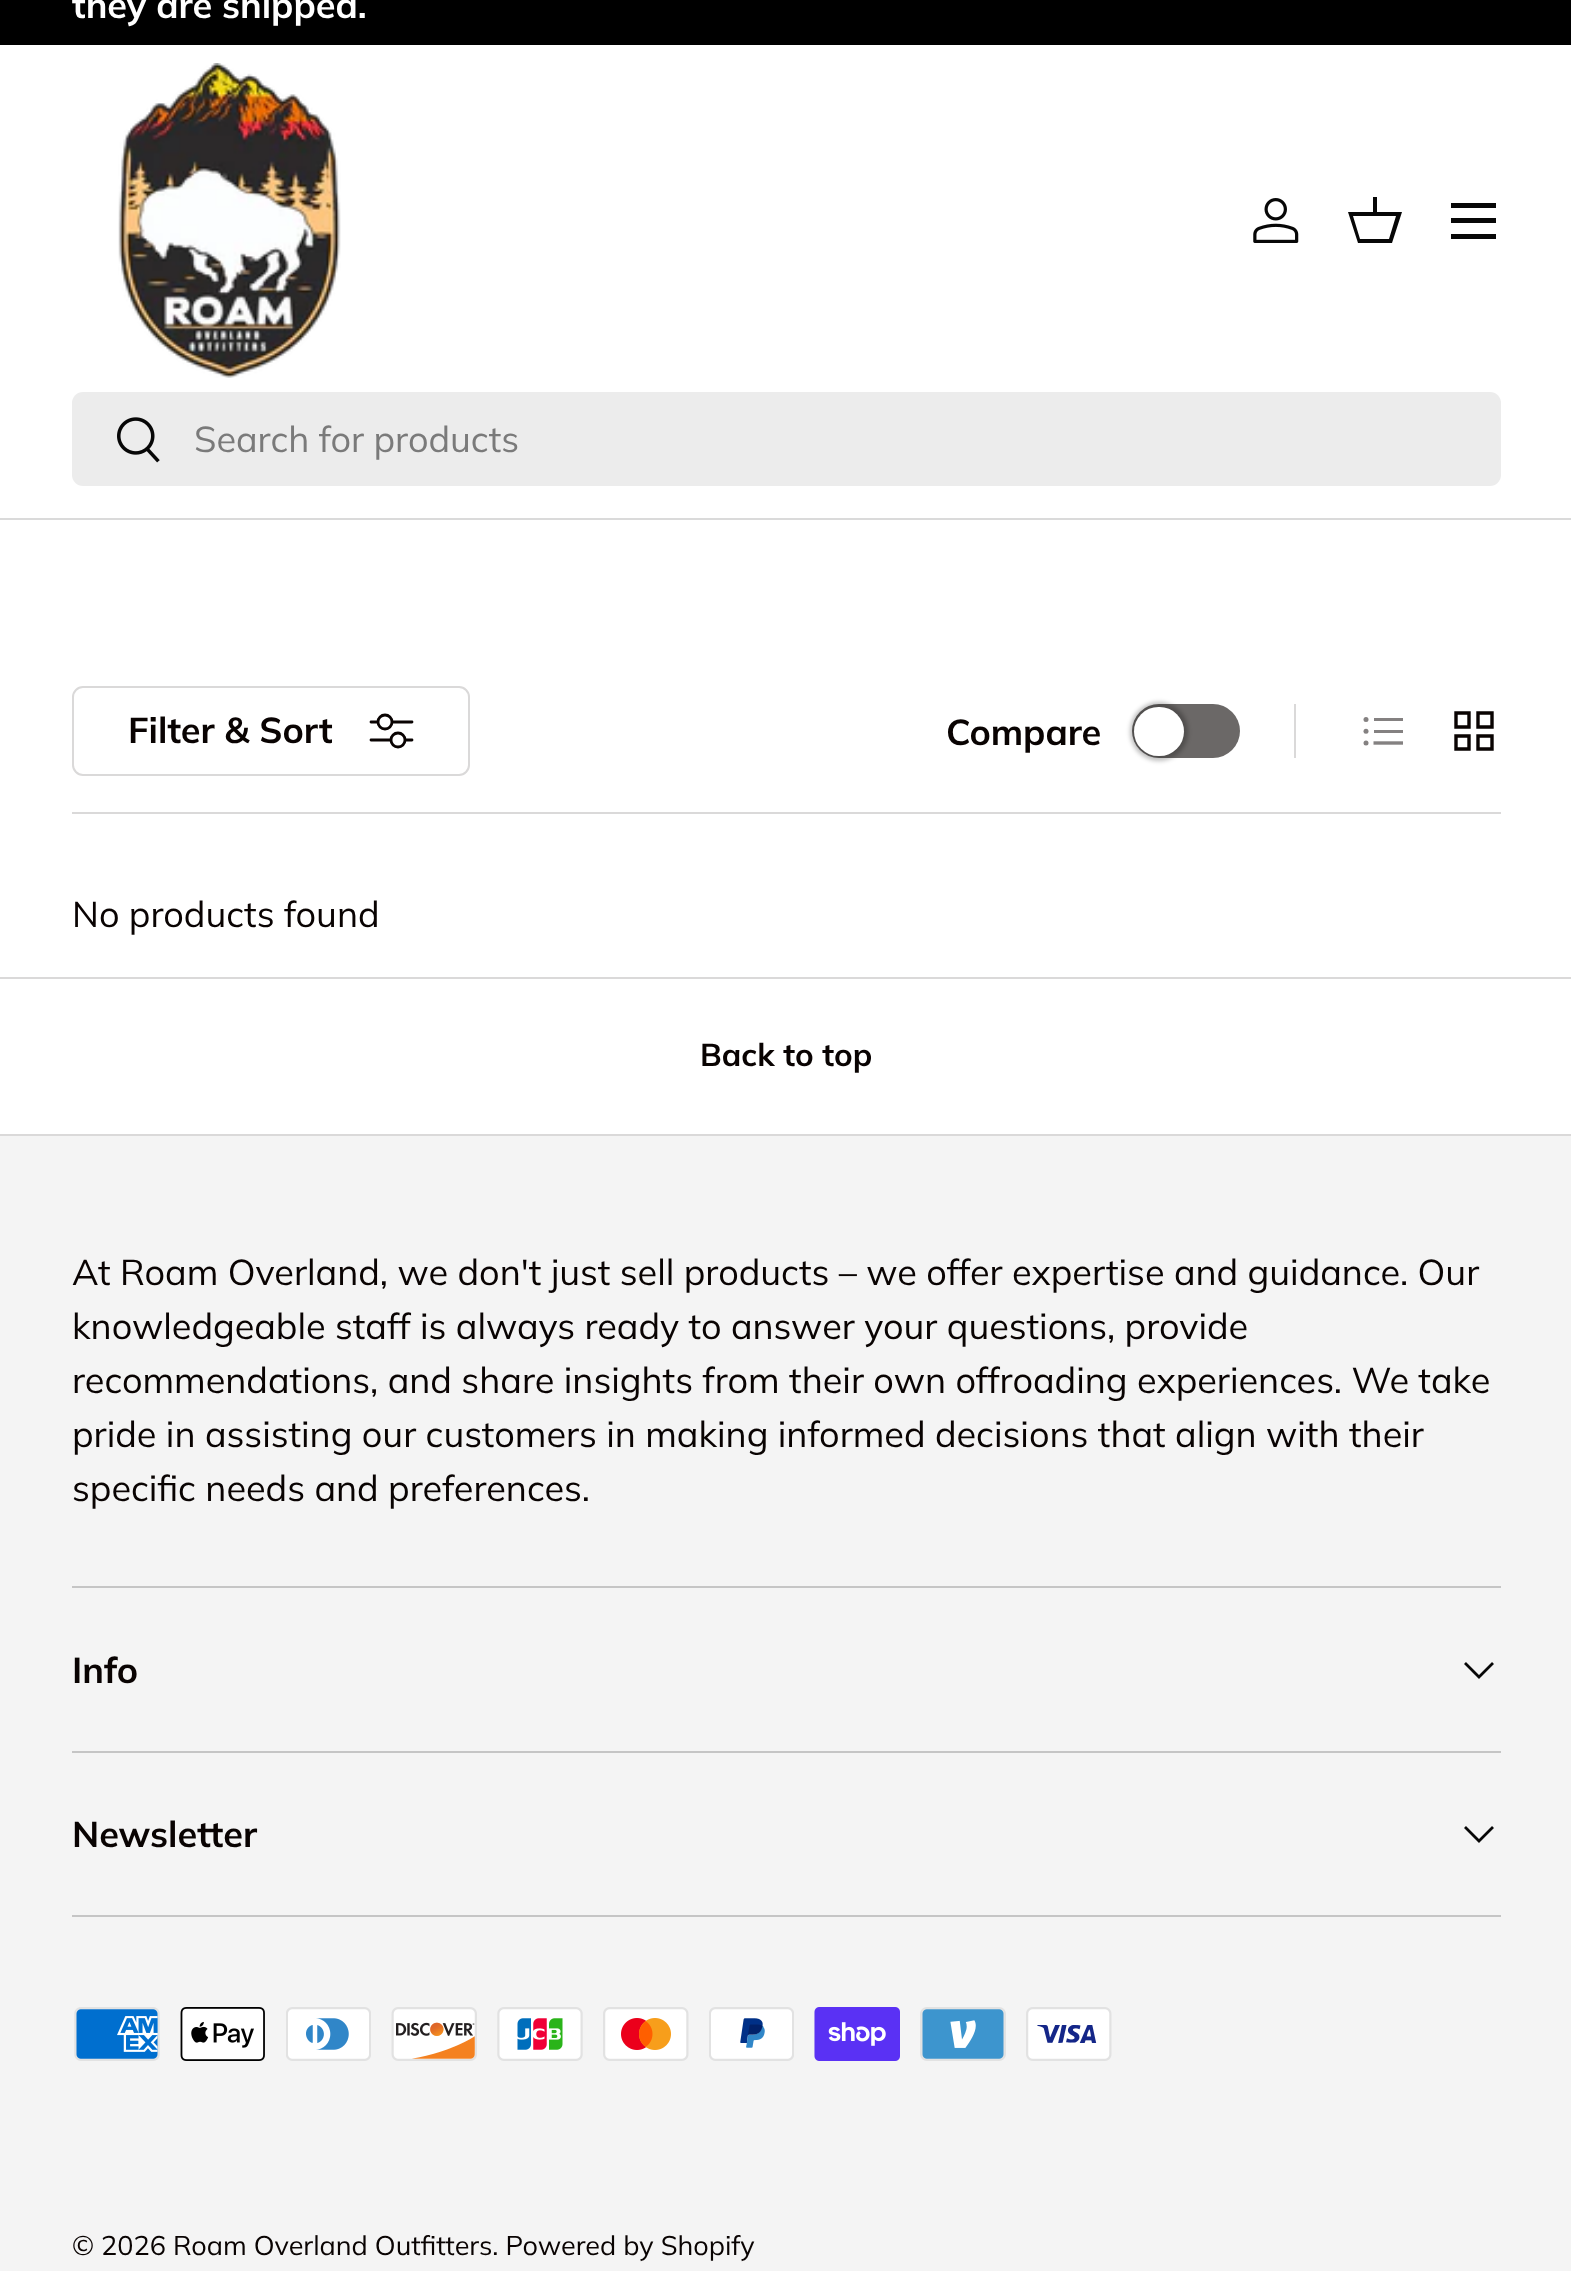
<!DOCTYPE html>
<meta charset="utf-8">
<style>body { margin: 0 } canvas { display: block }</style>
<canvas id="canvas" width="1571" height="2271"></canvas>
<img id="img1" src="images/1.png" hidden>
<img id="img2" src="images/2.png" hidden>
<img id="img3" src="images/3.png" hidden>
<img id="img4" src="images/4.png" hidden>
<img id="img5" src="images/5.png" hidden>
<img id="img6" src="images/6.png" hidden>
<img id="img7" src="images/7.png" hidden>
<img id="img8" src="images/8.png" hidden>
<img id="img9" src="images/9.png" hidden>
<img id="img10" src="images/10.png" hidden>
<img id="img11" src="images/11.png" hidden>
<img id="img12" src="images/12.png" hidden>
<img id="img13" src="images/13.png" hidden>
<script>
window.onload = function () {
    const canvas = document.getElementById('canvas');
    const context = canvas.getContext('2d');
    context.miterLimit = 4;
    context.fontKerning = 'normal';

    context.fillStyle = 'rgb(255, 255, 255)';
    context.fillRect(0, 0, 1571, 2271);
    context.fillStyle = 'rgb(0, 0, 0)';
    context.fillRect(0, 0, 1571, 45);
    context.fillStyle = 'rgb(218, 218, 218)';
    context.fillRect(0, 518, 1571, 2);
    context.drawImage(document.getElementById('img1'), 118, 63, 223, 315);
    context.drawImage(document.getElementById('img2'), 1253, 198, 46, 45);
    context.fillStyle = 'rgb(7, 7, 7)';
    context.beginPath();
    context.moveTo(1373, 212);
    context.lineTo(1373, 197);
    context.lineTo(1377, 197);
    context.lineTo(1377, 212);
    context.lineTo(1402, 212);
    context.lineTo(1392, 243);
    context.lineTo(1358, 243);
    context.lineTo(1348, 212);
    context.closePath();
    context.moveTo(1353, 216);
    context.lineTo(1360, 239);
    context.lineTo(1389, 239);
    context.lineTo(1396, 216);
    context.closePath();
    context.fill();
    context.fillRect(1451, 203, 45, 5);
    context.fillRect(1451, 234, 45, 5);
    context.fillRect(1451, 218, 45, 5);
    context.fillStyle = 'rgb(236, 236, 236)';
    context.beginPath();
    context.roundRect(72, 392, 1429, 94, 11);
    context.fill();
    context.drawImage(document.getElementById('img3'), 117, 417, 43, 46);
    context.fillStyle = 'rgb(218, 217, 217)';
    context.fillRect(72, 812, 1429, 2);
    context.beginPath();
    context.roundRect(73, 687, 396, 88, 10);
    context.strokeStyle = 'rgb(218, 217, 217)';
    context.lineWidth = 2;
    context.stroke();
    context.beginPath();
    context.moveTo(371, 722);
    context.lineTo(412, 722);
    context.moveTo(371, 740);
    context.lineTo(412, 740);
    context.strokeStyle = 'rgb(9, 3, 2)';
    context.lineWidth = 2.8;
    context.lineCap = 'round';
    context.lineJoin = 'round';
    context.stroke();
    context.fillStyle = 'rgb(255, 255, 255)';
    context.beginPath();
    context.arc(385, 722, 7, 0, 2 * Math.PI);
    context.fill();
    context.stroke();
    context.beginPath();
    context.arc(398, 740, 7, 0, 2 * Math.PI);
    context.fill();
    context.stroke();
    context.fillStyle = 'rgb(107, 104, 103)';
    context.beginPath();
    context.roundRect(1132, 704, 108, 54, 27);
    context.fill();
    context.fillStyle = 'rgba(0, 0, 0, 0.25)';
    context.filter = 'blur(2px)';
    context.beginPath();
    context.roundRect(1130, 702, 58, 59, 29);
    context.fill();
    context.filter = 'none';
    context.fillStyle = 'rgb(255, 255, 255)';
    context.beginPath();
    context.roundRect(1134, 707, 50, 49, 24.5);
    context.fill();
    context.fillStyle = 'rgb(218, 217, 217)';
    context.fillRect(1294, 704, 2, 54);
    context.fillStyle = 'rgb(132, 129, 129)';
    context.beginPath();
    context.arc(1366, 719.6, 2.5, 0, 2 * Math.PI);
    context.fill();
    context.fillRect(1374, 718, 29, 3);
    context.beginPath();
    context.arc(1366, 731.3, 2.5, 0, 2 * Math.PI);
    context.fill();
    context.fillRect(1374, 730, 29, 3);
    context.beginPath();
    context.arc(1366, 742.9, 2.5, 0, 2 * Math.PI);
    context.fill();
    context.beginPath();
    context.moveTo(1373.5, 743);
    context.lineTo(1403, 743);
    context.strokeStyle = 'rgb(132, 129, 129)';
    context.lineWidth = 3.4;
    context.lineCap = 'butt';
    context.lineJoin = 'miter';
    context.stroke();
    context.beginPath();
    context.moveTo(1456, 713);
    context.lineTo(1469, 713);
    context.lineTo(1469, 727);
    context.lineTo(1456, 727);
    context.closePath();
    context.moveTo(1478, 713);
    context.lineTo(1492, 713);
    context.lineTo(1492, 727);
    context.lineTo(1478, 727);
    context.closePath();
    context.moveTo(1456, 736);
    context.lineTo(1469, 736);
    context.lineTo(1469, 749);
    context.lineTo(1456, 749);
    context.closePath();
    context.moveTo(1478, 736);
    context.lineTo(1492, 736);
    context.lineTo(1492, 749);
    context.lineTo(1478, 749);
    context.closePath();
    context.strokeStyle = 'rgb(9, 3, 2)';
    context.stroke();
    context.fillStyle = 'rgb(218, 217, 217)';
    context.fillRect(0, 977, 1571, 2);
    context.fillRect(0, 1134, 1571, 2);
    context.fillStyle = 'rgb(244, 244, 244)';
    context.fillRect(0, 1136, 1571, 1135);
    context.fillStyle = 'rgb(197, 197, 197)';
    context.fillRect(72, 1586, 1429, 2);
    context.fillRect(72, 1751, 1429, 2);
    context.beginPath();
    context.moveTo(1493, 1663);
    context.lineTo(1479, 1677);
    context.lineTo(1465, 1663);
    context.strokeStyle = 'rgb(7, 7, 7)';
    context.lineWidth = 2.8;
    context.stroke();
    context.fillRect(72, 1915, 1429, 2);
    context.beginPath();
    context.moveTo(1493, 1827);
    context.lineTo(1479, 1841);
    context.lineTo(1465, 1827);
    context.stroke();
    context.drawImage(document.getElementById('img4'), 74, 2007, 86, 54);
    context.drawImage(document.getElementById('img5'), 180, 2007, 85, 54);
    context.drawImage(document.getElementById('img6'), 286, 2007, 85, 54);
    context.drawImage(document.getElementById('img7'), 391, 2007, 86, 54);
    context.drawImage(document.getElementById('img8'), 497, 2007, 86, 54);
    context.drawImage(document.getElementById('img9'), 603, 2007, 86, 54);
    context.drawImage(document.getElementById('img10'), 709, 2007, 85, 54);
    context.drawImage(document.getElementById('img11'), 814, 2007, 86, 54);
    context.drawImage(document.getElementById('img12'), 920, 2007, 86, 54);
    context.drawImage(document.getElementById('img13'), 1026, 2007, 86, 54);
    context.font = 'bold 36px Muli';
    context.fillStyle = 'rgb(255, 255, 255)';
    context.fillText('they are shipped.', 72, 18);
    context.font = '36px Muli';
    context.fillStyle = 'rgb(122, 122, 122)';
    context.fillText('Search for products', 194, 452);
    context.font = 'bold 36px Muli';
    context.fillStyle = 'rgb(9, 3, 2)';
    context.fillText('Filter & Sort', 128, 743);
    context.fillText('Compare', 946, 745);
    context.font = '36px Muli';
    context.fillText('No products found', 72, 927);
    context.font = 'bold 31.5px Muli';
    context.fillText('Back to top', 700, 1066);
    context.font = '36px Muli';
    context.fillText('At Roam Overland, we don\'t just sell products – we offer expertise and guidance. Our', 72, 1285);
    context.fillText('knowledgeable staff is always ready to answer your questions, provide', 72, 1339);
    context.fillText('recommendations, and share insights from their own offroading experiences. We take', 72, 1393);
    context.fillText('pride in assisting our customers in making informed decisions that align with their', 72, 1447);
    context.fillText('specific needs and preferences.', 72, 1501);
    context.font = 'bold 36px Muli';
    context.fillText('Info', 72, 1683);
    context.fillText('Newsletter', 72, 1847);
    context.font = '27px Muli';
    context.fillText('© 2026 Roam Overland Outfitters. Powered by Shopify', 72, 2255);
};
</script>
